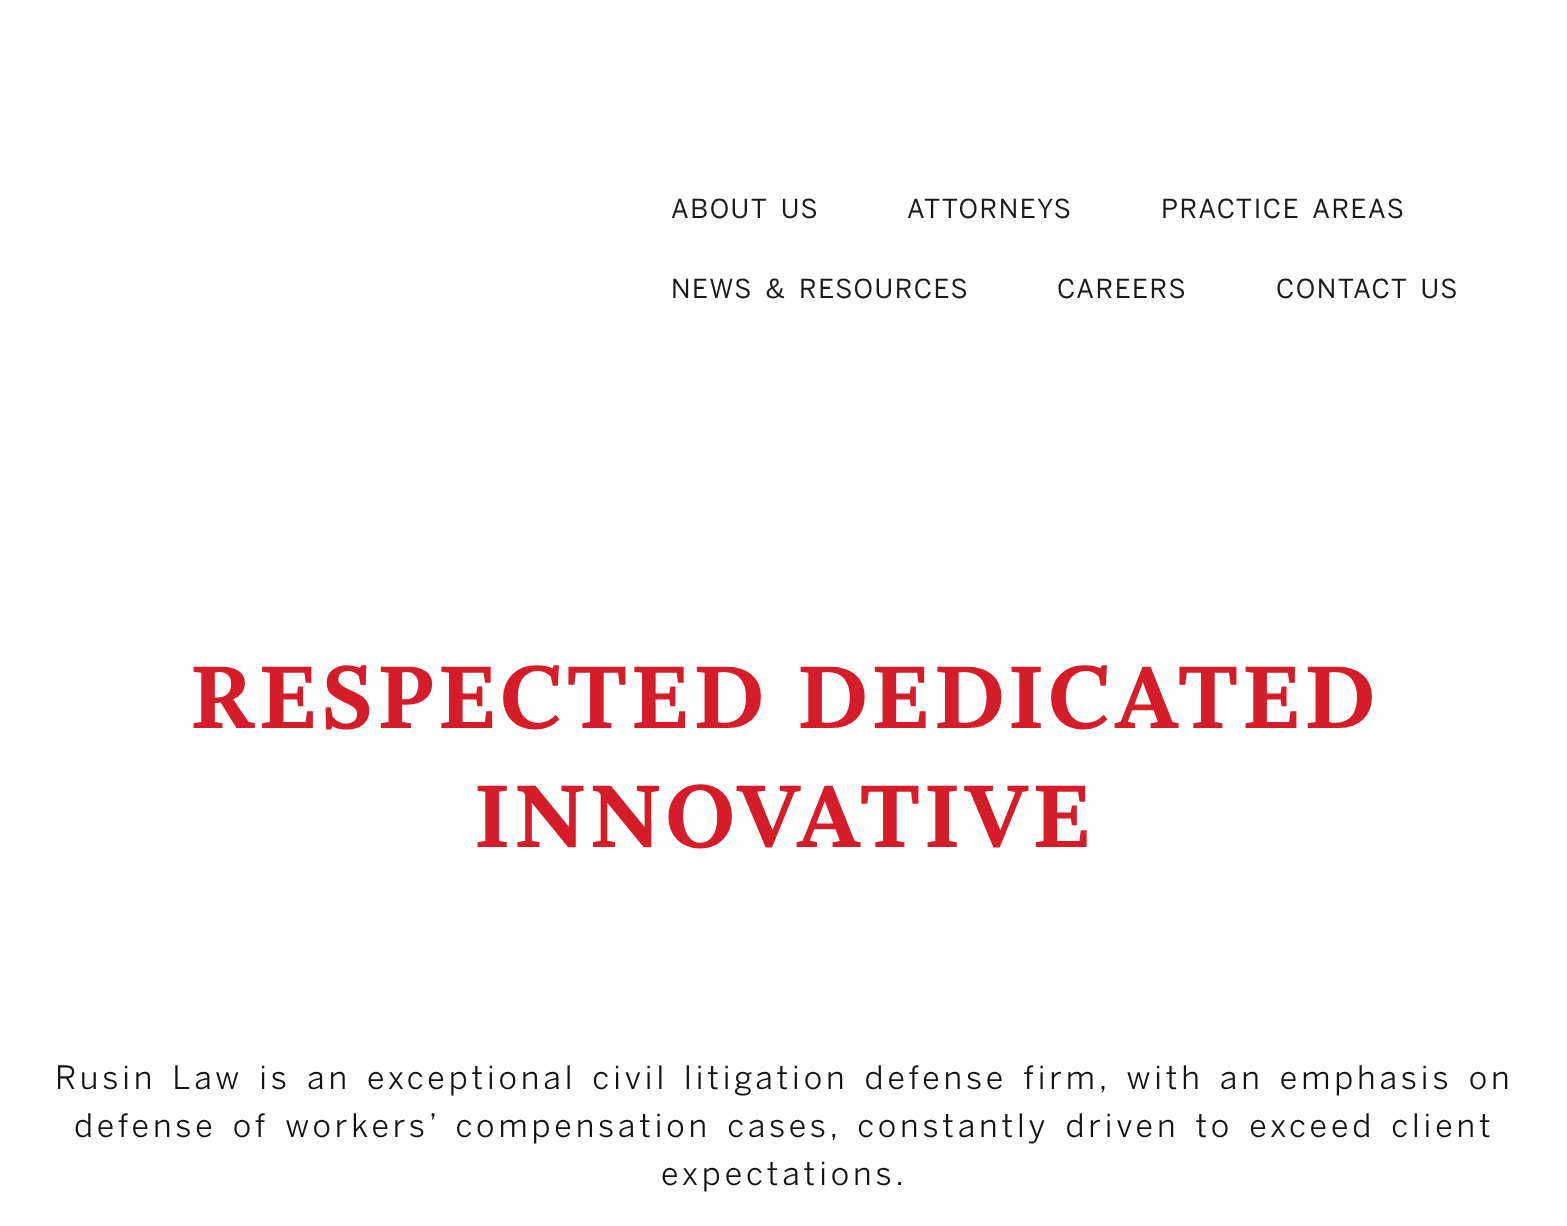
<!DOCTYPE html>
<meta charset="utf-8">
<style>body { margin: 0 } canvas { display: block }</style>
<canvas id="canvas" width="1567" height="1226"></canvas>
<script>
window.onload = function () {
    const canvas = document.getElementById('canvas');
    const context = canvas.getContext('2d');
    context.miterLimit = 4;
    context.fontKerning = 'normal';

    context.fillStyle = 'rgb(255, 255, 255)';
    context.fillRect(0, 0, 1567, 1226);
    context.letterSpacing = '1.6px';
    context.wordSpacing = '5.1px';
    context.font = '26px "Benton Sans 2"';
    context.fillStyle = 'rgb(26, 26, 26)';
    context.fillText('ABOUT US', 671, 218);
    context.wordSpacing = '0px';
    context.fillText('ATTORNEYS', 907, 218);
    context.wordSpacing = '5.1px';
    context.fillText('PRACTICE AREAS', 1161, 218);
    context.fillText('NEWS & RESOURCES', 671, 298);
    context.wordSpacing = '0px';
    context.fillText('CAREERS', 1057, 298);
    context.wordSpacing = '5.1px';
    context.fillText('CONTACT US', 1276, 298);
    context.letterSpacing = '3.85px';
    context.wordSpacing = '0px';
    context.font = '800 99.25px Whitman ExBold';
    context.fillStyle = 'rgb(213, 28, 41)';
    context.fillText('RESPECTED', 190, 728);
    context.fillText('DEDICATED', 797, 728);
    context.fillText('INNOVATIVE', 474, 847);
    context.wordSpacing = '5.1px';
    context.font = '32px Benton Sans';
    context.fillStyle = 'rgb(18, 18, 18)';
    context.fillText('Rusin Law is an exceptional civil litigation defense firm, with an emphasis on', 55, 1089);
    context.fillText('defense of workers’ compensation cases, constantly driven to exceed client', 74, 1137);
    context.wordSpacing = '0px';
    context.fillText('expectations.', 661, 1185);
};
</script>
